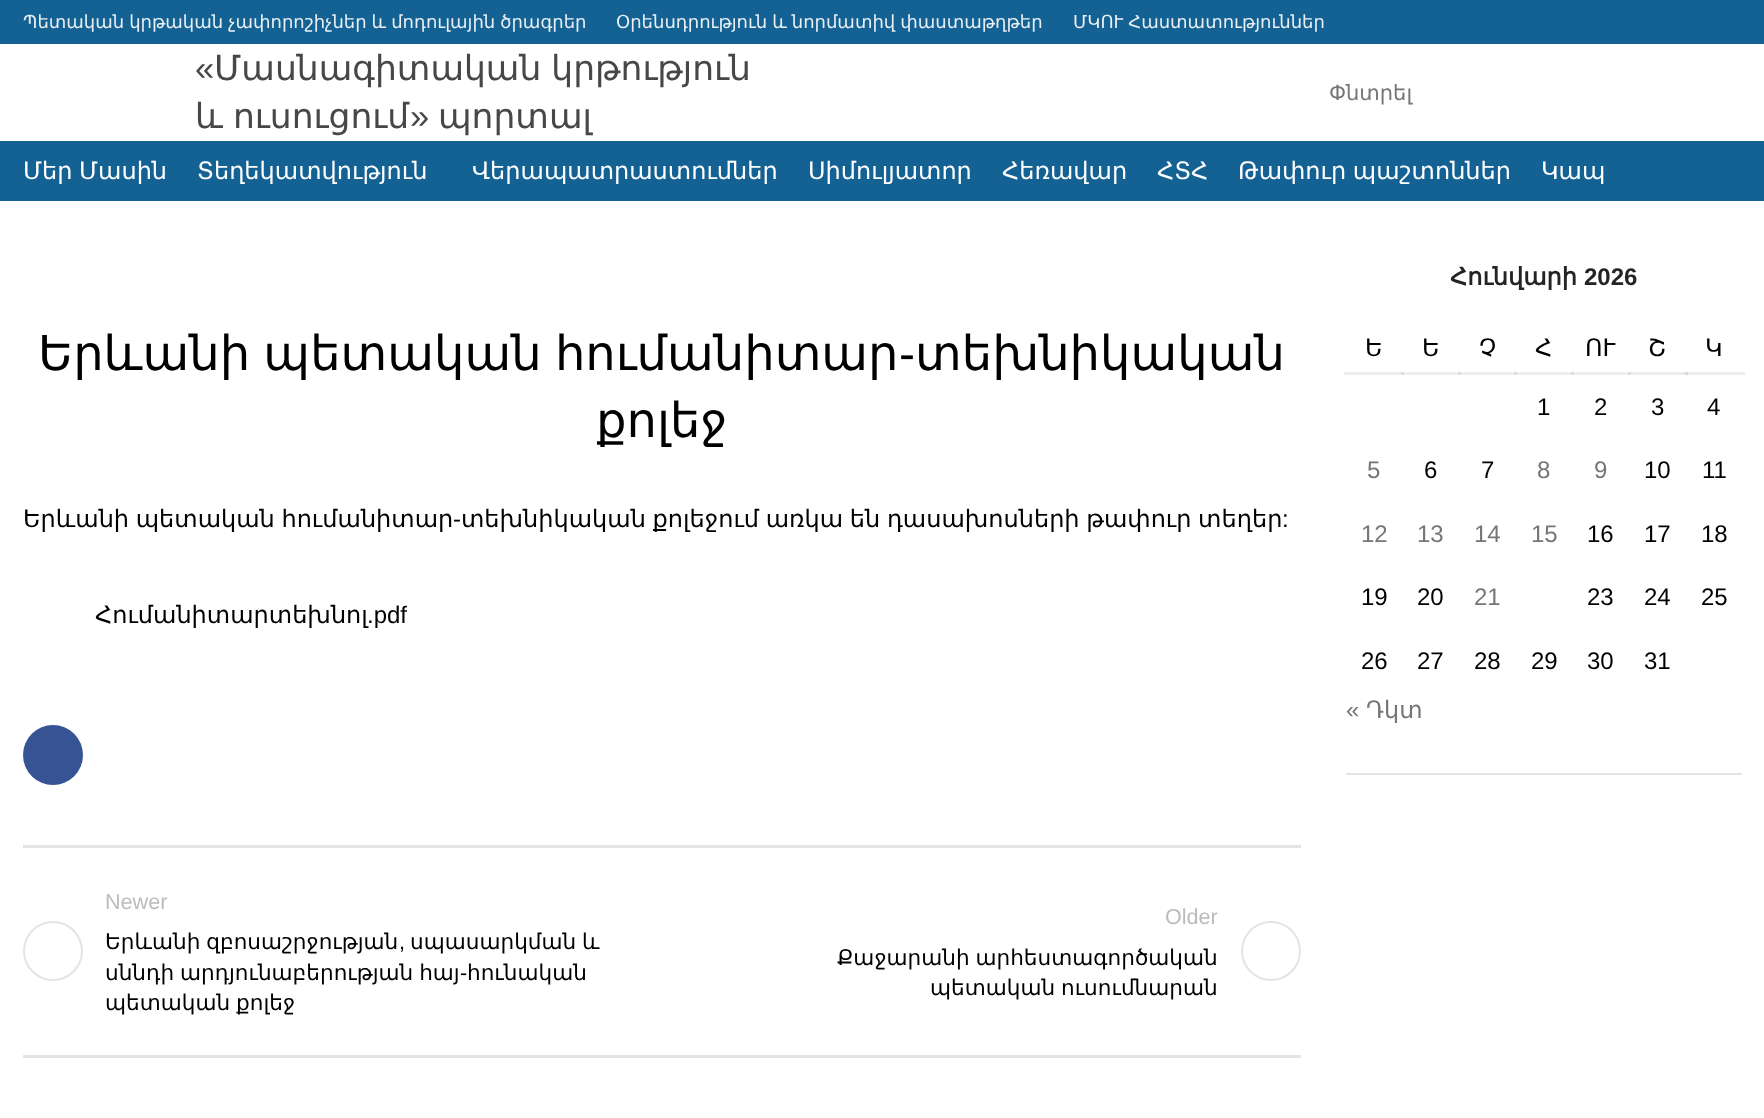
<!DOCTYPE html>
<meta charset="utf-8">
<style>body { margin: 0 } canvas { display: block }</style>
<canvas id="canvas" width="1764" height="1118"></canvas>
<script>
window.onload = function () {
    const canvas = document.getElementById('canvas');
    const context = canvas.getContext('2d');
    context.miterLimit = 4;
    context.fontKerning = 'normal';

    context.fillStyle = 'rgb(255, 255, 255)';
    context.fillRect(0, 0, 1764, 1118);
    context.fillStyle = 'rgb(237, 237, 237)';
    context.fillRect(1344, 372, 344, 3);
    context.fillStyle = 'rgb(220, 220, 220)';
    context.fillRect(1401, 372, 3, 3);
    context.fillRect(1458, 372, 3, 3);
    context.fillRect(1514, 372, 3, 3);
    context.fillRect(1571, 372, 3, 3);
    context.fillRect(1628, 372, 3, 3);
    context.fillStyle = 'rgb(20, 97, 147)';
    context.fillRect(0, 0, 1764, 44);
    context.fillRect(0, 141, 1764, 60);
    context.fillStyle = 'rgb(54, 84, 147)';
    context.beginPath();
    context.arc(53, 755, 30, 0, 2 * Math.PI);
    context.fill();
    context.fillStyle = 'rgb(228, 228, 228)';
    context.fillRect(23, 845, 1278, 3);
    context.fillRect(23, 1055, 1278, 3);
    context.beginPath();
    context.arc(53, 951, 29, 0, 2 * Math.PI);
    context.strokeStyle = 'rgb(228, 228, 228)';
    context.lineWidth = 2;
    context.stroke();
    context.beginPath();
    context.arc(1271, 951, 29, 0, 2 * Math.PI);
    context.stroke();
    context.fillRect(1346, 773, 396, 2);
    context.fillStyle = 'rgb(236, 236, 236)';
    context.fillRect(1685, 372, 60, 3);
    context.fillStyle = 'rgb(219, 219, 219)';
    context.fillRect(1685, 372, 3, 3);
    context.wordSpacing = '-0.75px';
    context.font = '18px DejaVu Sans';
    context.fillStyle = 'rgb(232, 239, 244)';
    context.fillText('Պետական կրթական չափորոշիչներ և մոդուլային ծրագրեր', 23, 28);
    context.fillText('Օրենսդրություն և նորմատիվ փաստաթղթեր', 616, 28);
    context.fillText('ՄԿՈՒ Հաստատություններ', 1073, 28);
    context.wordSpacing = '0px';
    context.font = '34.5px Liberation Sans';
    context.fillStyle = 'rgb(72, 70, 70)';
    context.fillText('«', 195, 80);
    context.wordSpacing = '-1px';
    context.font = '34.5px DejaVu Sans';
    context.fillText('Մասնագիտական կրթություն', 214, 80);
    context.fillText('և ուսուցում', 195, 128);
    context.wordSpacing = '0px';
    context.font = '34.5px Liberation Sans';
    context.fillText('»', 410, 128);
    context.font = '34.5px DejaVu Sans';
    context.fillText('պորտալ', 438, 128);
    context.font = '21px DejaVu Sans';
    context.fillStyle = 'rgb(118, 118, 118)';
    context.fillText('Փնտրել', 1329, 100);
    context.wordSpacing = '-1px';
    context.font = '24px DejaVu Sans';
    context.fillStyle = 'rgb(255, 255, 255)';
    context.fillText('Մեր Մասին', 23, 179);
    context.wordSpacing = '0px';
    context.fillText('Տեղեկատվություն', 197, 179);
    context.fillText('Վերապատրաստումներ', 472, 179);
    context.fillText('Սիմուլյատոր', 808, 179);
    context.fillText('Հեռավար', 1002, 179);
    context.fillText('ՀՏՀ', 1157, 179);
    context.wordSpacing = '-1px';
    context.fillText('Թափուր պաշտոններ', 1238, 179);
    context.wordSpacing = '0px';
    context.fillText('Կապ', 1541, 179);
    context.wordSpacing = '-2px';
    context.font = '48px DejaVu Sans';
    context.fillStyle = 'rgb(0, 0, 0)';
    context.fillText('Երևանի պետական հումանիտար', 38, 370);
    context.wordSpacing = '0px';
    context.font = '48px Liberation Sans';
    context.fillText('-', 899, 370);
    context.font = '48px DejaVu Sans';
    context.fillText('տեխնիկական', 915, 370);
    context.fillText('քոլեջ', 596, 437);
    context.wordSpacing = '-1px';
    context.font = '24px DejaVu Sans';
    context.fillText('Երևանի պետական հումանիտար', 23, 527);
    context.wordSpacing = '0px';
    context.font = '24px Liberation Sans';
    context.fillText('-', 453, 527);
    context.wordSpacing = '-1px';
    context.font = '24px DejaVu Sans';
    context.fillText('տեխնիկական քոլեջում առկա են դասախոսների թափուր տեղեր', 461, 527);
    context.wordSpacing = '0px';
    context.font = '24px Liberation Sans';
    context.fillText(':', 1282, 527);
    context.font = '24px DejaVu Sans';
    context.fillText('Հումանիտարտեխնոլ', 95, 623);
    context.font = '24px Liberation Sans';
    context.fillText('.pdf', 367, 623);
    context.font = '21.6px Liberation Sans';
    context.fillStyle = 'rgb(187, 187, 187)';
    context.fillText('Newer', 105, 909);
    context.wordSpacing = '-1px';
    context.font = '21.6px DejaVu Sans';
    context.fillStyle = 'rgb(0, 0, 0)';
    context.fillText('Երևանի զբոսաշրջության', 105, 949);
    context.wordSpacing = '0px';
    context.font = '21.6px Liberation Sans';
    context.fillText(',', 399, 949);
    context.wordSpacing = '-1px';
    context.font = '21.6px DejaVu Sans';
    context.fillText('սպասարկման և', 410, 949);
    context.fillText('սննդի արդյունաբերության հայ', 105, 980);
    context.wordSpacing = '0px';
    context.font = '21.6px Liberation Sans';
    context.fillText('-', 460, 980);
    context.font = '21.6px DejaVu Sans';
    context.fillText('հունական', 467, 980);
    context.wordSpacing = '-1px';
    context.fillText('պետական քոլեջ', 105, 1010);
    context.wordSpacing = '0px';
    context.font = '21.6px Liberation Sans';
    context.fillStyle = 'rgb(187, 187, 187)';
    context.fillText('Older', 1165, 924);
    context.wordSpacing = '-1px';
    context.font = '21.6px DejaVu Sans';
    context.fillStyle = 'rgb(0, 0, 0)';
    context.fillText('Քաջարանի արհեստագործական', 837, 965);
    context.fillText('պետական ուսումնարան', 930, 995);
    context.wordSpacing = '0px';
    context.font = 'bold 24px DejaVu Sans';
    context.fillStyle = 'rgb(36, 36, 36)';
    context.fillText('Հունվարի', 1450, 285);
    context.font = 'bold 24px Liberation Sans';
    context.fillText('2026', 1584, 285);
    context.font = '24px DejaVu Sans';
    context.fillStyle = 'rgb(0, 0, 0)';
    context.fillText('Ե', 1365, 356);
    context.fillText('Ե', 1422, 356);
    context.fillText('Չ', 1479, 356);
    context.fillText('Հ', 1535, 356);
    context.fillText('ՈՒ', 1585, 356);
    context.fillText('Շ', 1648, 356);
    context.fillText('Կ', 1705, 356);
    context.font = '24px Liberation Sans';
    context.fillText('1', 1537, 415);
    context.fillText('2', 1594, 415);
    context.fillText('3', 1651, 415);
    context.fillText('4', 1707, 415);
    context.fillStyle = 'rgb(118, 118, 118)';
    context.fillText('5', 1367, 478);
    context.fillStyle = 'rgb(0, 0, 0)';
    context.fillText('6', 1424, 478);
    context.fillText('7', 1481, 478);
    context.fillStyle = 'rgb(118, 118, 118)';
    context.fillText('8', 1537, 478);
    context.fillText('9', 1594, 478);
    context.fillStyle = 'rgb(0, 0, 0)';
    context.fillText('10', 1644, 478);
    context.fillText('11', 1702, 478);
    context.fillStyle = 'rgb(118, 118, 118)';
    context.fillText('12', 1361, 542);
    context.fillText('13', 1417, 542);
    context.fillText('14', 1474, 542);
    context.fillText('15', 1531, 542);
    context.fillStyle = 'rgb(0, 0, 0)';
    context.fillText('16', 1587, 542);
    context.fillText('17', 1644, 542);
    context.fillText('18', 1701, 542);
    context.fillText('19', 1361, 605);
    context.fillText('20', 1417, 605);
    context.fillStyle = 'rgb(118, 118, 118)';
    context.fillText('21', 1474, 605);
    context.fillStyle = 'rgb(0, 0, 0)';
    context.fillText('23', 1587, 605);
    context.fillText('24', 1644, 605);
    context.fillText('25', 1701, 605);
    context.fillText('26', 1361, 669);
    context.fillText('27', 1417, 669);
    context.fillText('28', 1474, 669);
    context.fillText('29', 1531, 669);
    context.fillText('30', 1587, 669);
    context.fillText('31', 1644, 669);
    context.fillStyle = 'rgb(118, 118, 118)';
    context.fillText('«', 1346, 718);
    context.font = '24px DejaVu Sans';
    context.fillText('Դկտ', 1366, 718);
};
</script>
